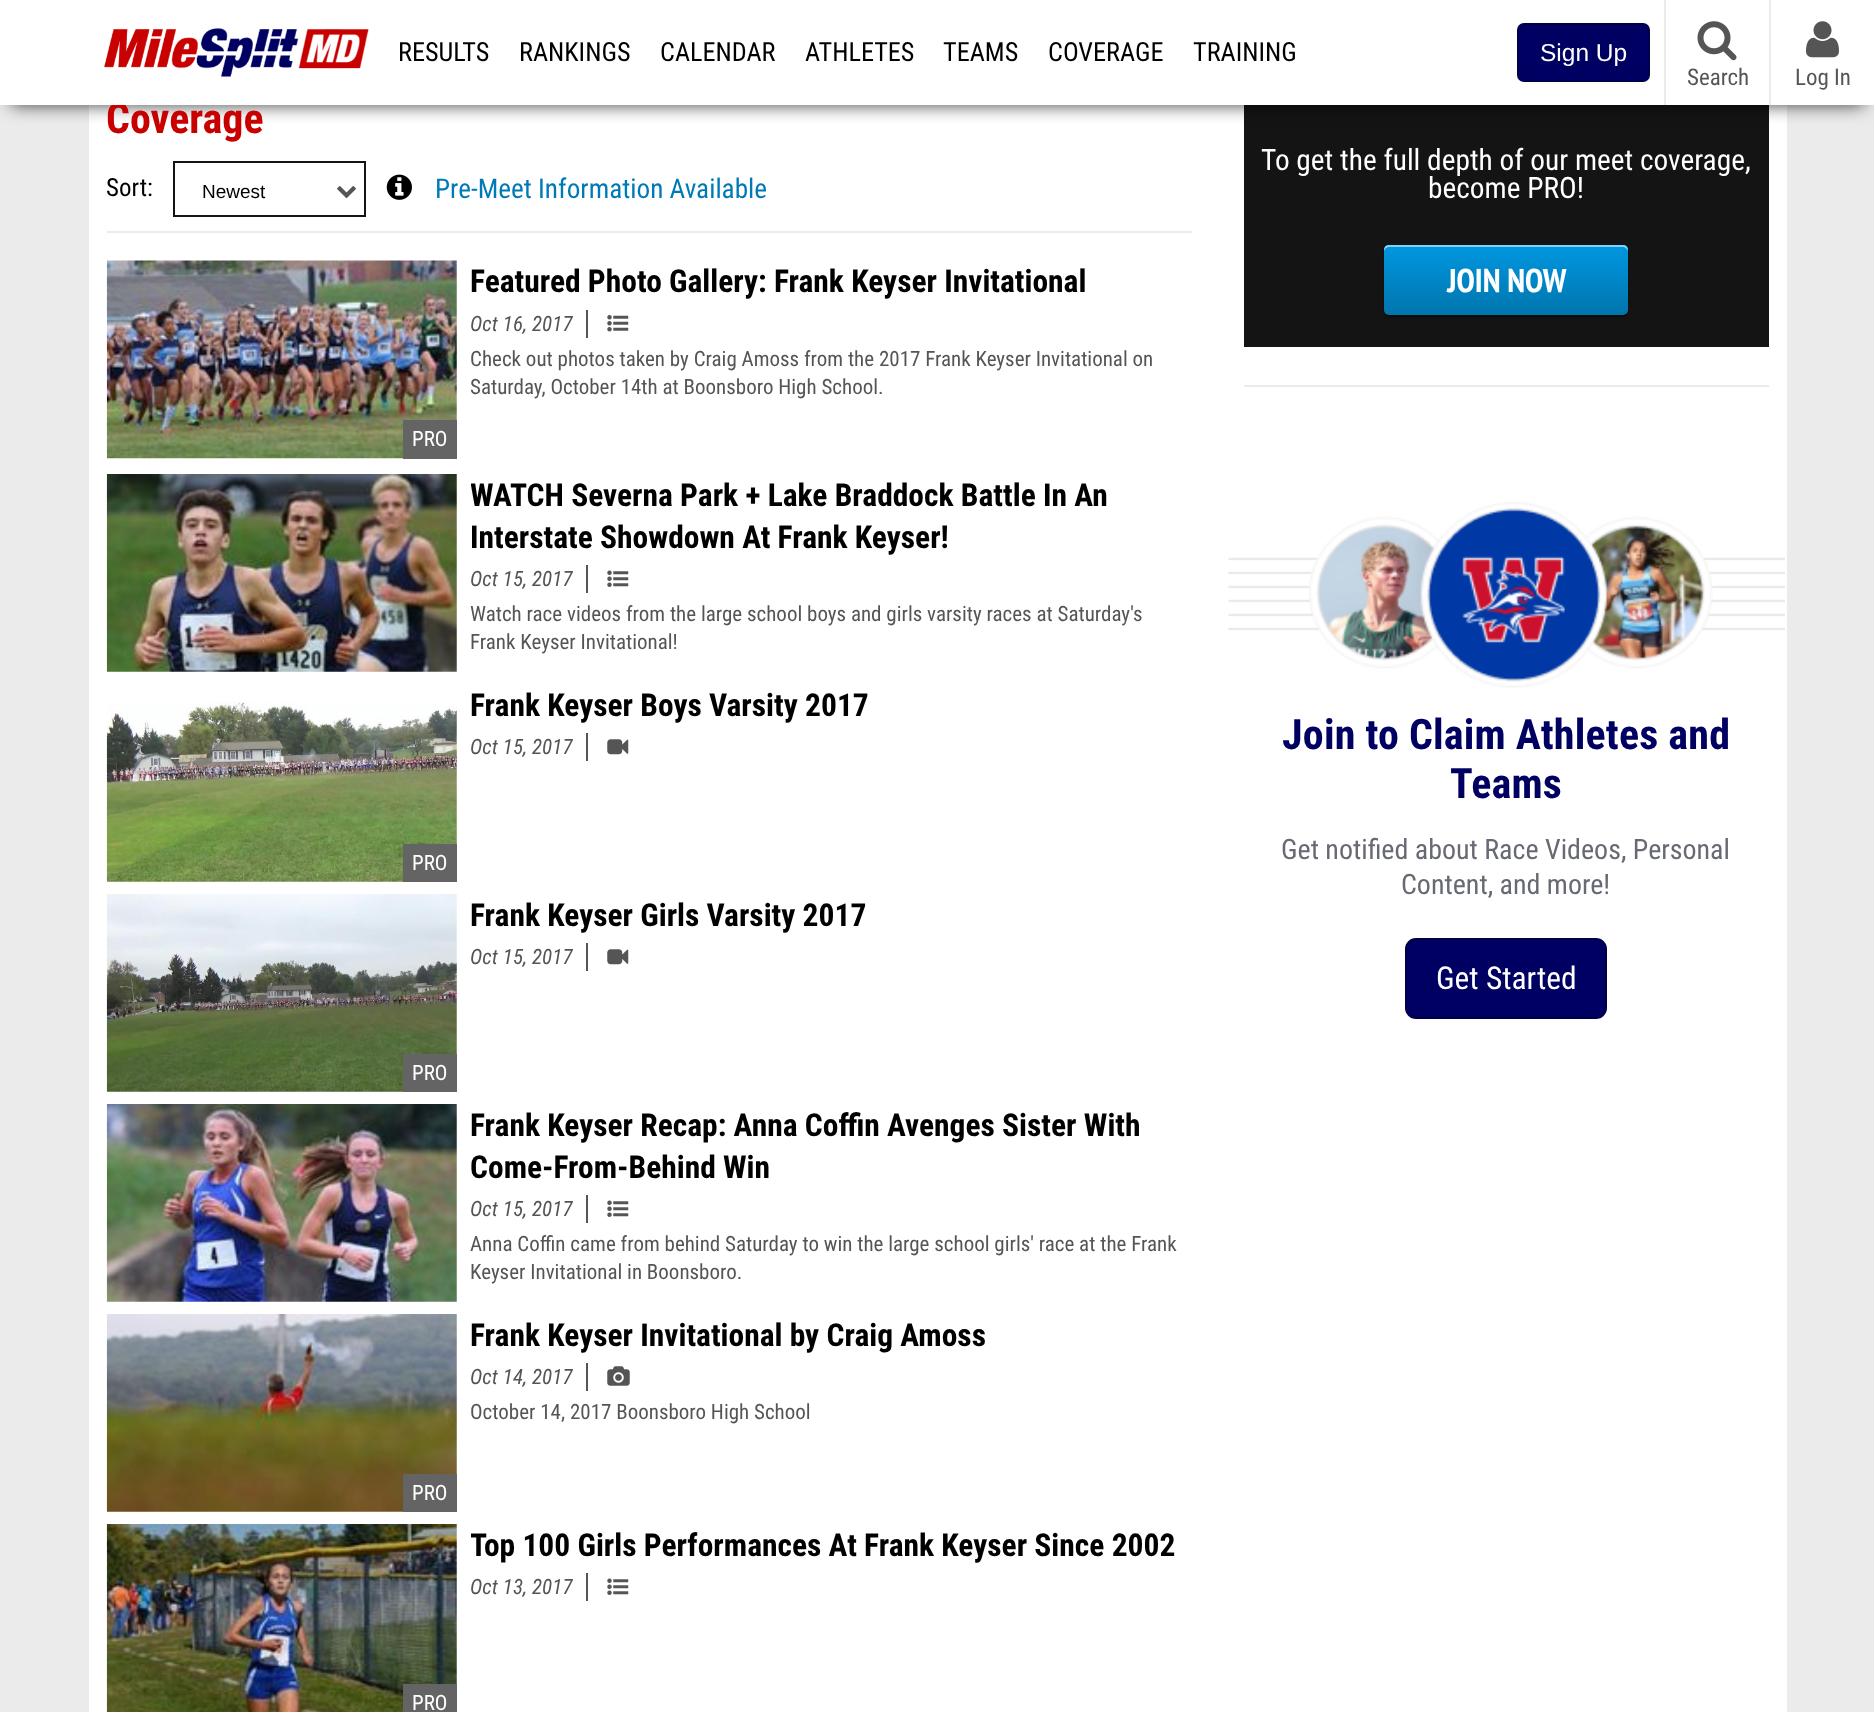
<!DOCTYPE html>
<meta charset="utf-8">
<style>body { margin: 0 } canvas { display: block }</style>
<canvas id="canvas" width="1874" height="1712"></canvas>
<img id="img1" src="images/4.png" hidden>
<img id="img2" src="images/5.png" hidden>
<img id="img3" src="images/6.png" hidden>
<img id="img4" src="images/7.png" hidden>
<img id="img5" src="images/8.png" hidden>
<img id="img6" src="images/9.png" hidden>
<img id="img7" src="images/10.png" hidden>
<img id="img8" src="images/11.png" hidden>
<img id="img9" src="images/12.png" hidden>
<img id="img10" src="images/13.png" hidden>
<img id="img11" src="images/14.png" hidden>
<img id="img12" src="images/15.png" hidden>
<img id="img13" src="images/16.png" hidden>
<img id="img14" src="images/17.png" hidden>
<img id="img15" src="images/18.png" hidden>
<img id="img16" src="images/3.png" hidden>
<img id="img17" src="images/2.png" hidden>
<img id="img18" src="images/1.png" hidden>
<script>
window.onload = function () {
    const canvas = document.getElementById('canvas');
    const context = canvas.getContext('2d');
    context.miterLimit = 4;
    context.fontKerning = 'normal';
    let gradient;

    context.fillStyle = 'rgb(235, 235, 235)';
    context.fillRect(0, 0, 1874, 1712);
    context.fillStyle = 'rgb(255, 255, 255)';
    context.fillRect(89, 105, 1698, 1607);
    context.fillStyle = 'rgb(20, 20, 20)';
    context.fillRect(1244, 105, 525, 242);
    context.fillStyle = 'rgba(0, 0, 0, 0.75)';
    context.filter = 'blur(9px)';
    context.beginPath();
    context.rect(11, 21, 1853, 84);
    context.fill();
    context.filter = 'none';
    context.fillStyle = 'rgb(235, 235, 235)';
    context.fillRect(107, 231, 1085, 2);
    context.strokeStyle = 'rgb(20, 20, 20)';
    context.lineWidth = 2;
    context.strokeRect(174, 162, 191, 54);
    context.drawImage(document.getElementById('img1'), 337, 186, 19, 13);
    context.drawImage(document.getElementById('img2'), 386, 174, 26, 26);
    context.fillStyle = 'rgb(85, 85, 85)';
    context.fillRect(586, 310, 2, 28);
    context.drawImage(document.getElementById('img3'), 607, 315, 22, 17);
    context.drawImage(document.getElementById('img4'), 106, 260, 351, 199);
    context.fillStyle = 'rgb(100, 100, 100)';
    context.fillRect(403, 420, 54, 39);
    context.drawImage(document.getElementById('img5'), 106, 474, 351, 198);
    context.fillStyle = 'rgb(85, 85, 85)';
    context.fillRect(586, 565, 2, 28);
    context.drawImage(document.getElementById('img6'), 607, 570, 22, 17);
    context.fillRect(586, 733, 2, 28);
    context.drawImage(document.getElementById('img7'), 607, 739, 22, 16);
    context.drawImage(document.getElementById('img8'), 106, 702, 351, 180);
    context.fillStyle = 'rgb(100, 100, 100)';
    context.fillRect(403, 844, 54, 38);
    context.fillStyle = 'rgb(85, 85, 85)';
    context.fillRect(586, 943, 2, 28);
    context.drawImage(document.getElementById('img9'), 607, 949, 22, 16);
    context.drawImage(document.getElementById('img10'), 106, 894, 351, 198);
    context.fillStyle = 'rgb(100, 100, 100)';
    context.fillRect(403, 1054, 54, 38);
    context.drawImage(document.getElementById('img11'), 106, 1104, 351, 198);
    context.fillStyle = 'rgb(85, 85, 85)';
    context.fillRect(586, 1195, 2, 28);
    context.drawImage(document.getElementById('img6'), 607, 1200, 22, 17);
    context.fillRect(586, 1363, 2, 28);
    context.drawImage(document.getElementById('img12'), 607, 1366, 23, 20);
    context.drawImage(document.getElementById('img13'), 106, 1314, 351, 198);
    context.fillStyle = 'rgb(100, 100, 100)';
    context.fillRect(403, 1474, 54, 38);
    context.fillStyle = 'rgb(85, 85, 85)';
    context.fillRect(586, 1573, 2, 28);
    context.drawImage(document.getElementById('img6'), 607, 1578, 22, 17);
    context.drawImage(document.getElementById('img14'), 106, 1524, 351, 188);
    context.fillStyle = 'rgb(100, 100, 100)';
    context.fillRect(403, 1684, 54, 28);
    context.fillStyle = 'rgba(0, 0, 0, 0.5)';
    context.filter = 'blur(1px)';
    context.beginPath();
    context.roundRect(1384, 247, 244, 70, 5);
    context.fill();
    context.filter = 'none';
    gradient = context.createLinearGradient(1506, 245, 1506, 315);
    gradient.addColorStop(0, 'rgb(0, 151, 224)');
    gradient.addColorStop(1, 'rgb(0, 117, 173)');
    context.fillStyle = gradient;
    context.beginPath();
    context.roundRect(1384, 245, 244, 70, 5);
    context.fill();
    context.fillStyle = 'rgb(122, 212, 255)';
    context.beginPath();
    context.moveTo(1390, 247);
    context.lineTo(1622, 247);
    context.bezierCurveTo(1625, 247, 1628, 249, 1628, 252);
    context.bezierCurveTo(1628, 249, 1628, 246, 1624, 245);
    context.lineTo(1388, 245);
    context.bezierCurveTo(1384, 246, 1384, 249, 1384, 252);
    context.bezierCurveTo(1384, 249, 1387, 247, 1390, 247);
    context.closePath();
    context.fill();
    context.fillStyle = 'rgb(235, 235, 235)';
    context.fillRect(1244, 385, 525, 2);
    context.drawImage(document.getElementById('img15'), 1228, 502, 557, 186);
    context.fillStyle = 'rgb(0, 0, 98)';
    context.beginPath();
    context.roundRect(1406, 939, 200, 79, 10);
    context.fill();
    context.strokeStyle = 'rgb(0, 0, 73)';
    context.stroke();
    context.font = 'bold 42px Roboto Condensed';
    context.fillStyle = 'rgb(200, 0, 0)';
    context.fillText('Coverage', 106, 133);
    context.fillStyle = 'rgb(255, 255, 255)';
    context.fillRect(0, 0, 1874, 105);
    context.font = '23px Roboto Condensed';
    context.fillStyle = 'rgb(85, 85, 85)';
    context.fillText('Log In', 1795, 85);
    context.drawImage(document.getElementById('img16'), 1806, 21, 33, 37);
    context.fillStyle = 'rgb(235, 235, 235)';
    context.fillRect(1769, 0, 2, 105);
    context.fillStyle = 'rgb(85, 85, 85)';
    context.fillText('Search', 1687, 85);
    context.drawImage(document.getElementById('img17'), 1697, 21, 40, 40);
    context.fillStyle = 'rgb(235, 235, 235)';
    context.fillRect(1664, 0, 2, 105);
    context.fillStyle = 'rgb(0, 0, 98)';
    context.beginPath();
    context.roundRect(1518, 24, 131, 57, 6);
    context.fill();
    context.stroke();
    context.font = '24.5px Liberation Sans';
    context.fillStyle = 'rgb(255, 255, 255)';
    context.fillText('Sign Up', 1540, 61);
    context.drawImage(document.getElementById('img18'), 104, 28, 265, 50);
    context.font = '26.25px Roboto Condensed';
    context.fillStyle = 'rgb(0, 0, 0)';
    context.fillText('TRAINING', 1193, 61);
    context.fillText('COVERAGE', 1048, 61);
    context.fillText('TEAMS', 943, 61);
    context.fillText('ATHLETES', 805, 61);
    context.fillText('CALENDAR', 660, 61);
    context.fillText('RANKINGS', 519, 61);
    context.fillText('RESULTS', 398, 61);
    context.font = '25px Roboto Condensed';
    context.fillText('Sort:', 106, 196);
    context.font = '19px Liberation Sans';
    context.fillText('Newest', 202, 198);
    context.font = '27.25px Roboto Condensed';
    context.fillStyle = 'rgb(0, 121, 183)';
    context.fillText('Pre-Meet Information Available', 435, 198);
    context.font = 'bold 31.5px Roboto Condensed';
    context.fillStyle = 'rgb(0, 0, 0)';
    context.fillText('Featured Photo Gallery: Frank Keyser Invitational', 470, 292);
    context.font = 'italic 21px Roboto Condensed';
    context.fillStyle = 'rgb(85, 85, 85)';
    context.fillText('Oct 16, 2017', 470, 331);
    context.font = '21px Roboto Condensed';
    context.fillText('Check out photos taken by Craig Amoss from the 2017 Frank Keyser Invitational on', 470, 366);
    context.fillText('Saturday, October 14th at Boonsboro High School.', 470, 394);
    context.fillStyle = 'rgb(255, 255, 255)';
    context.fillText('PRO', 412, 446);
    context.save();
    context.beginPath();
    context.rect(471, 474, 707, 84);
    context.clip();
    context.font = 'bold 31.5px Roboto Condensed';
    context.fillStyle = 'rgb(0, 0, 0)';
    context.fillText('WATCH Severna Park + Lake Braddock Battle In An', 470, 506);
    context.restore();
    context.font = 'bold 31.5px Roboto Condensed';
    context.fillStyle = 'rgb(0, 0, 0)';
    context.fillText('Interstate Showdown At Frank Keyser!', 470, 548);
    context.font = 'italic 21px Roboto Condensed';
    context.fillStyle = 'rgb(85, 85, 85)';
    context.fillText('Oct 15, 2017', 470, 586);
    context.font = '21px Roboto Condensed';
    context.fillText('Watch race videos from the large school boys and girls varsity races at Saturday\'s', 470, 621);
    context.fillText('Frank Keyser Invitational!', 470, 649);
    context.font = 'bold 31.5px Roboto Condensed';
    context.fillStyle = 'rgb(0, 0, 0)';
    context.fillText('Frank Keyser Boys Varsity 2017', 470, 716);
    context.font = 'italic 21px Roboto Condensed';
    context.fillStyle = 'rgb(85, 85, 85)';
    context.fillText('Oct 15, 2017', 470, 754);
    context.font = '21px Roboto Condensed';
    context.fillStyle = 'rgb(255, 255, 255)';
    context.fillText('PRO', 412, 870);
    context.font = 'bold 31.5px Roboto Condensed';
    context.fillStyle = 'rgb(0, 0, 0)';
    context.fillText('Frank Keyser Girls Varsity 2017', 470, 926);
    context.font = 'italic 21px Roboto Condensed';
    context.fillStyle = 'rgb(85, 85, 85)';
    context.fillText('Oct 15, 2017', 470, 964);
    context.font = '21px Roboto Condensed';
    context.fillStyle = 'rgb(255, 255, 255)';
    context.fillText('PRO', 412, 1080);
    context.font = 'bold 31.5px Roboto Condensed';
    context.fillStyle = 'rgb(0, 0, 0)';
    context.fillText('Frank Keyser Recap: Anna Coffin Avenges Sister With', 470, 1136);
    context.fillText('Come-From-Behind Win', 470, 1178);
    context.font = 'italic 21px Roboto Condensed';
    context.fillStyle = 'rgb(85, 85, 85)';
    context.fillText('Oct 15, 2017', 470, 1216);
    context.font = '21px Roboto Condensed';
    context.fillText('Anna Coffin came from behind Saturday to win the large school girls\' race at the Frank', 470, 1251);
    context.fillText('Keyser Invitational in Boonsboro.', 470, 1279);
    context.font = 'bold 31.5px Roboto Condensed';
    context.fillStyle = 'rgb(0, 0, 0)';
    context.fillText('Frank Keyser Invitational by Craig Amoss', 470, 1346);
    context.font = 'italic 21px Roboto Condensed';
    context.fillStyle = 'rgb(85, 85, 85)';
    context.fillText('Oct 14, 2017', 470, 1384);
    context.font = '21px Roboto Condensed';
    context.fillText('October 14, 2017 Boonsboro High School', 470, 1419);
    context.fillStyle = 'rgb(255, 255, 255)';
    context.fillText('PRO', 412, 1500);
    context.save();
    context.beginPath();
    context.rect(471, 1524, 707, 42);
    context.clip();
    context.font = 'bold 31.5px Roboto Condensed';
    context.fillStyle = 'rgb(0, 0, 0)';
    context.fillText('Top 100 Girls Performances At Frank Keyser Since 2002', 470, 1556);
    context.restore();
    context.font = 'italic 21px Roboto Condensed';
    context.fillStyle = 'rgb(85, 85, 85)';
    context.fillText('Oct 13, 2017', 470, 1594);
    context.font = '21px Roboto Condensed';
    context.fillStyle = 'rgb(255, 255, 255)';
    context.fillText('PRO', 412, 1710);
    context.font = '29.4px Roboto Condensed';
    context.fillText('To get the full depth of our meet coverage,', 1261, 170);
    context.fillText('become PRO!', 1428, 198);
    context.font = 'bold 33px PT Sans Narrow';
    context.fillText('JOIN NOW', 1447, 292);
    context.letterSpacing = '0.2px';
    context.font = 'bold 42px Roboto Condensed';
    context.fillStyle = 'rgb(0, 0, 98)';
    context.fillText('Join to Claim Athletes and', 1282, 749);
    context.fillText('Teams', 1450, 798);
    context.letterSpacing = '0px';
    context.font = '28px Roboto Condensed';
    context.fillStyle = 'rgb(103, 105, 115)';
    context.fillText('Get notified about Race Videos, Personal', 1281, 859);
    context.fillText('Content, and more!', 1401, 894);
    context.font = '31.5px Roboto Condensed';
    context.fillStyle = 'rgb(255, 255, 255)';
    context.fillText('Get Started', 1436, 989);
};
</script>
